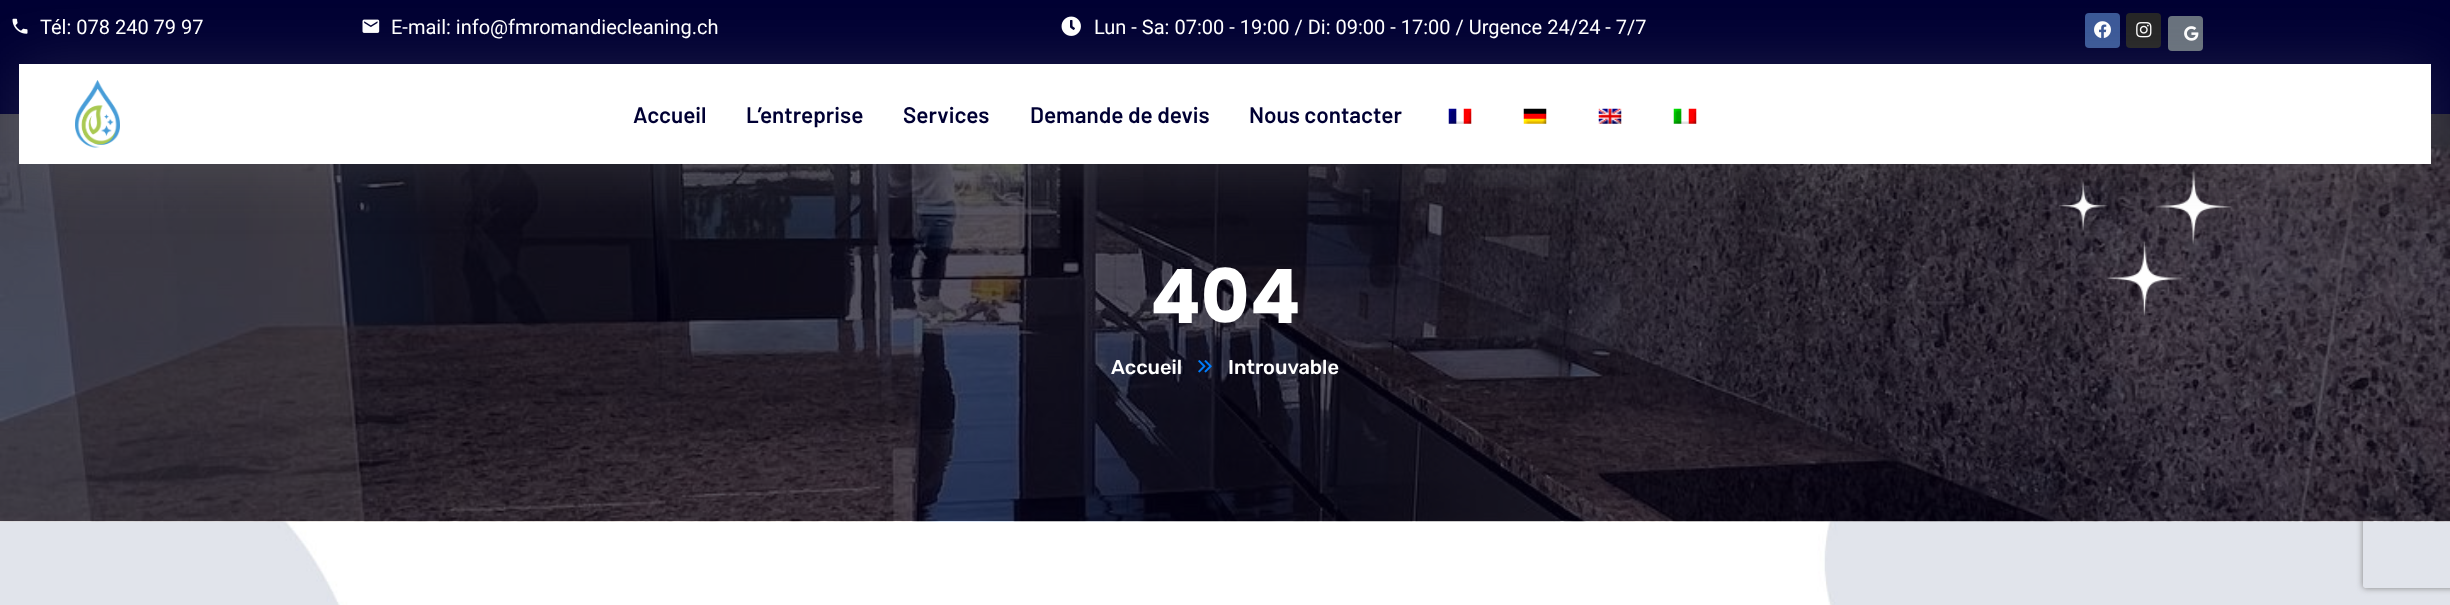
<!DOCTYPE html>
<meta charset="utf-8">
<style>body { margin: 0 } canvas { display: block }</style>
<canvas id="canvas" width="2450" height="605"></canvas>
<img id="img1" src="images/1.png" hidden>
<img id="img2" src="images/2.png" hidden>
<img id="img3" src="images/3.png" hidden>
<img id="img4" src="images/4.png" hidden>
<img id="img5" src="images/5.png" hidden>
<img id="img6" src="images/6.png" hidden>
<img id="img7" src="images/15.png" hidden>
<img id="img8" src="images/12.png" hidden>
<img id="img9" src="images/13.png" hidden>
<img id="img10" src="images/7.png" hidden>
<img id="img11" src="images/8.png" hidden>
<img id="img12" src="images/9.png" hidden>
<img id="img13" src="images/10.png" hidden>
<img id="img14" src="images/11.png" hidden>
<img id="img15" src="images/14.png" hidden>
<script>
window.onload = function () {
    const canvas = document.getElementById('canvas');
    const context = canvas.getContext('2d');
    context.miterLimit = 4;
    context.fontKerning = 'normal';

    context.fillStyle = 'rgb(255, 255, 255)';
    context.fillRect(0, 0, 2450, 605);
    context.fillStyle = 'rgb(0, 0, 51)';
    context.fillRect(0, 0, 2450, 114);
    context.drawImage(document.getElementById('img1'), 12, 18, 16, 16);
    context.drawImage(document.getElementById('img2'), 362, 19, 18, 14);
    context.drawImage(document.getElementById('img3'), 1061, 16, 20, 20);
    context.fillStyle = 'rgb(59, 89, 152)';
    context.beginPath();
    context.roundRect(2085, 13, 35, 35, 4);
    context.fill();
    context.drawImage(document.getElementById('img4'), 2094, 21, 17, 17);
    context.fillStyle = 'rgb(38, 38, 38)';
    context.beginPath();
    context.roundRect(2126, 13, 35, 35, 4);
    context.fill();
    context.drawImage(document.getElementById('img5'), 2136, 22, 16, 16);
    context.fillStyle = 'rgb(105, 114, 125)';
    context.beginPath();
    context.roundRect(2168, 16, 35, 35, 4);
    context.fill();
    context.drawImage(document.getElementById('img6'), 2184, 26, 15, 15);
    context.drawImage(document.getElementById('img7'), 0, 521, 2450, 84);
    context.save();
    context.beginPath();
    context.moveTo(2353, 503);
    context.lineTo(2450, 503);
    context.lineTo(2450, 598);
    context.lineTo(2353, 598);
    context.closePath();
    context.moveTo(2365.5, 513);
    context.lineTo(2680.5, 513);
    context.bezierCurveTo(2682, 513, 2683, 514, 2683, 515.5);
    context.lineTo(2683, 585.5);
    context.bezierCurveTo(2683, 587, 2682, 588, 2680.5, 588);
    context.lineTo(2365.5, 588);
    context.bezierCurveTo(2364, 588, 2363, 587, 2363, 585.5);
    context.lineTo(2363, 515.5);
    context.bezierCurveTo(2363, 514, 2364, 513, 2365.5, 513);
    context.closePath();
    context.clip('evenodd');
    context.fillStyle = 'rgb(128, 128, 128)';
    context.filter = 'blur(3px)';
    context.beginPath();
    context.roundRect(2363, 513, 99, 75, 2.5);
    context.fill();
    context.filter = 'none';
    context.restore();
    context.drawImage(document.getElementById('img8'), 0, 114, 2450, 408);
    context.drawImage(document.getElementById('img9'), 2058, 169, 173, 148);
    context.fillStyle = 'rgba(153, 153, 153, 0.2)';
    context.filter = 'blur(31px)';
    context.beginPath();
    context.rect(19, 69, 2412, 100);
    context.fill();
    context.filter = 'none';
    context.fillStyle = 'rgb(255, 255, 255)';
    context.fillRect(19, 64, 2412, 100);
    context.drawImage(document.getElementById('img10'), 75, 80, 45, 68);
    context.drawImage(document.getElementById('img11'), 1448, 108, 24, 16);
    context.drawImage(document.getElementById('img12'), 1523, 108, 24, 16);
    context.drawImage(document.getElementById('img13'), 1598, 108, 24, 16);
    context.drawImage(document.getElementById('img14'), 1673, 108, 24, 16);
    context.drawImage(document.getElementById('img15'), 1198, 360, 14, 13);
    context.font = '20px Roboto';
    context.fillText('Tél: 078 240 79 97', 40, 34);
    context.fillText('E-mail: info@fmromandiecleaning.ch', 391, 34);
    context.fillText('Lun - Sa: 07:00 - 19:00 / Di: 09:00 - 17:00 / Urgence 24/24 - 7/7', 1094, 34);
    context.font = '600 22.5px Barlow';
    context.fillStyle = 'rgb(0, 0, 51)';
    context.fillText('Accueil', 633, 123);
    context.fillText('L’entreprise', 746, 123);
    context.fillText('Services', 903, 123);
    context.fillText('Demande de devis', 1030, 123);
    context.fillText('Nous contacter', 1249, 123);
    context.font = 'bold 75px Poppins';
    context.fillStyle = 'rgb(255, 255, 255)';
    context.fillText('404', 1150, 323);
    context.font = '500 20px Rubik';
    context.fillText('Accueil', 1111, 374);
    context.fillText('Introuvable', 1228, 374);
};
</script>
